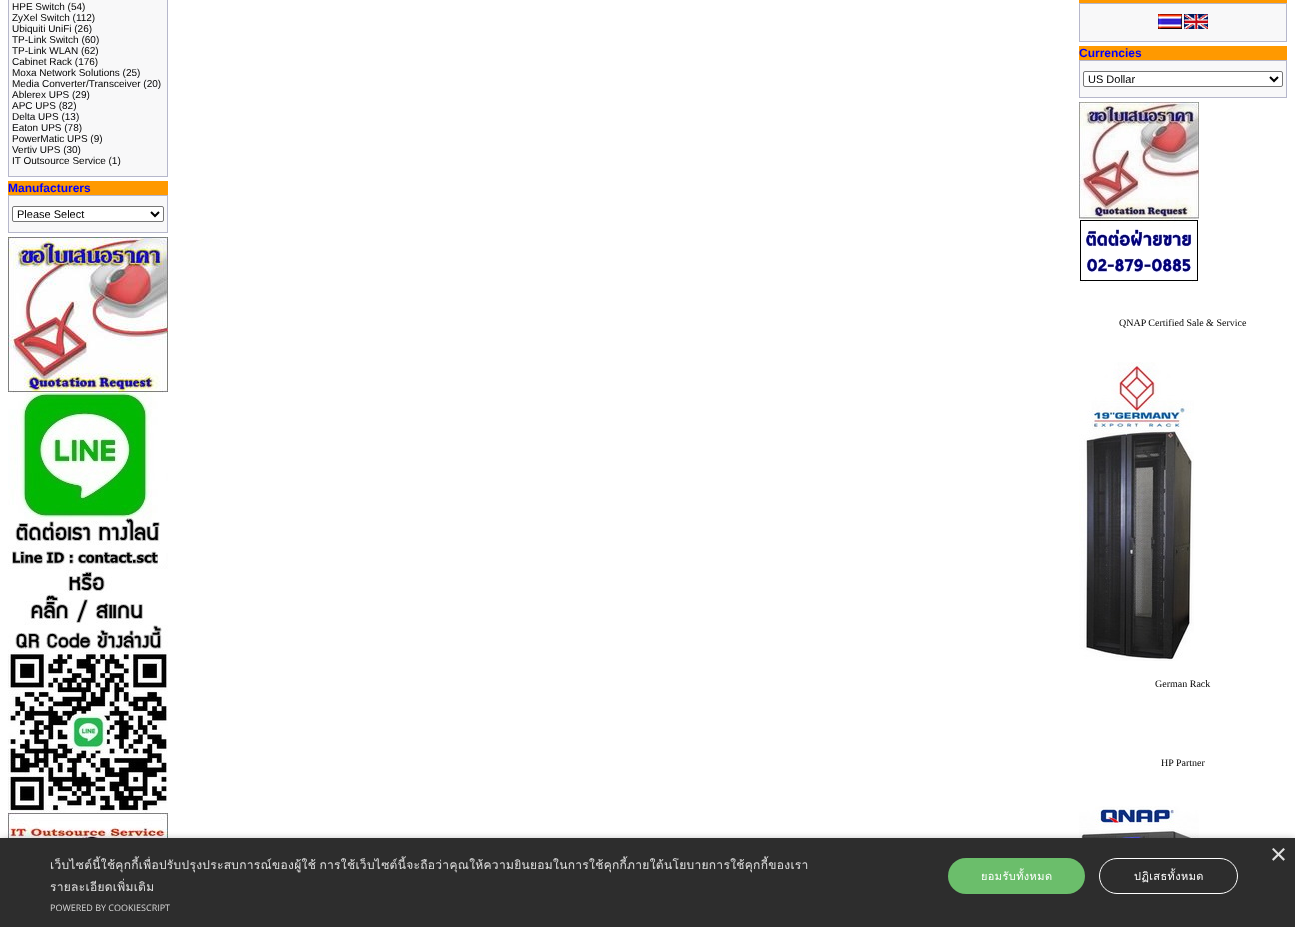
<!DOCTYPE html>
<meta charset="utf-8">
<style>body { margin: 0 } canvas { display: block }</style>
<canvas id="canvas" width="1295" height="927"></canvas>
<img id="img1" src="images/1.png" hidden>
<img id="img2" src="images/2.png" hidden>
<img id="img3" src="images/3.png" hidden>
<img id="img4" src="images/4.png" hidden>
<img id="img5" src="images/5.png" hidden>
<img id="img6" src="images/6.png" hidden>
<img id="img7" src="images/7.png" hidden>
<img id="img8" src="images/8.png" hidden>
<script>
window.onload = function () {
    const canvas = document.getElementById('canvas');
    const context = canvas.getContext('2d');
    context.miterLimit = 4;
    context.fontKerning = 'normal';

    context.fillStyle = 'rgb(255, 255, 255)';
    context.fillRect(0, 0, 1295, 927);
    context.fillStyle = 'rgb(182, 183, 203)';
    context.fillRect(8, 0, 160, 177);
    context.fillStyle = 'rgb(248, 248, 249)';
    context.fillRect(9, 0, 158, 176);
    context.fillStyle = 'rgb(255, 153, 0)';
    context.fillRect(8, 181, 160, 14);
    context.fillStyle = 'rgb(182, 183, 203)';
    context.fillRect(8, 195, 160, 38);
    context.fillStyle = 'rgb(248, 248, 249)';
    context.fillRect(9, 196, 158, 36);
    context.fillStyle = 'rgb(255, 255, 255)';
    context.beginPath();
    context.roundRect(12.5, 206.5, 151, 15, 1.5);
    context.fill();
    context.strokeStyle = 'rgb(118, 118, 118)';
    context.stroke();
    context.beginPath();
    context.moveTo(151, 212);
    context.lineTo(155, 216);
    context.lineTo(159, 212);
    context.strokeStyle = 'rgb(0, 0, 0)';
    context.lineWidth = 2;
    context.stroke();
    context.drawImage(document.getElementById('img1'), 8, 237, 160, 156);
    context.drawImage(document.getElementById('img2'), 8, 393, 160, 420);
    context.drawImage(document.getElementById('img3'), 8, 813, 160, 25);
    context.fillStyle = 'rgb(255, 153, 0)';
    context.fillRect(1079, 0, 208, 3);
    context.fillStyle = 'rgb(182, 183, 203)';
    context.fillRect(1079, 3, 208, 39);
    context.fillStyle = 'rgb(248, 248, 249)';
    context.fillRect(1080, 4, 206, 37);
    context.drawImage(document.getElementById('img4'), 1158, 14, 24, 15);
    context.drawImage(document.getElementById('img5'), 1184, 14, 24, 15);
    context.fillStyle = 'rgb(255, 153, 0)';
    context.fillRect(1079, 46, 208, 14);
    context.fillStyle = 'rgb(182, 183, 203)';
    context.fillRect(1079, 60, 208, 38);
    context.fillStyle = 'rgb(248, 248, 249)';
    context.fillRect(1080, 61, 206, 36);
    context.fillStyle = 'rgb(255, 255, 255)';
    context.beginPath();
    context.roundRect(1083.5, 71.5, 199, 15, 1.5);
    context.fill();
    context.strokeStyle = 'rgb(118, 118, 118)';
    context.lineWidth = 1;
    context.stroke();
    context.beginPath();
    context.moveTo(1270, 77);
    context.lineTo(1274, 81);
    context.lineTo(1278, 77);
    context.strokeStyle = 'rgb(0, 0, 0)';
    context.lineWidth = 2;
    context.stroke();
    context.drawImage(document.getElementById('img6'), 1079, 102, 120, 181);
    context.drawImage(document.getElementById('img7'), 1079, 362, 115, 299);
    context.drawImage(document.getElementById('img8'), 1079, 806, 120, 32);
    context.fillStyle = 'rgba(0, 0, 0, 0.35)';
    context.filter = 'blur(4px)';
    context.beginPath();
    context.rect(1, 840, 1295, 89);
    context.fill();
    context.filter = 'none';
    context.fillStyle = 'rgb(45, 45, 45)';
    context.fillRect(0, 838, 1295, 89);
    context.fillStyle = 'rgb(107, 190, 107)';
    context.beginPath();
    context.roundRect(948, 858, 137, 36, 18);
    context.fill();
    context.beginPath();
    context.roundRect(1099.5, 858.5, 138, 35, 17.5);
    context.strokeStyle = 'rgb(255, 255, 255)';
    context.lineWidth = 1;
    context.stroke();
    context.font = '10px Liberation Sans';
    context.fillStyle = 'rgb(0, 0, 0)';
    context.fillText('HPE Switch (54)', 12, 10);
    context.fillText('ZyXel Switch (112)', 12, 21);
    context.fillText('Ubiquiti UniFi (26)', 12, 32);
    context.fillText('TP-Link Switch (60)', 12, 43);
    context.fillText('TP-Link WLAN (62)', 12, 54);
    context.fillText('Cabinet Rack (176)', 12, 65);
    context.fillText('Moxa Network Solutions (25)', 12, 76);
    context.fillText('Media Converter/Transceiver (20)', 12, 87);
    context.fillText('Ablerex UPS (29)', 12, 98);
    context.fillText('APC UPS (82)', 12, 109);
    context.fillText('Delta UPS (13)', 12, 120);
    context.fillText('Eaton UPS (78)', 12, 131);
    context.fillText('PowerMatic UPS (9)', 12, 142);
    context.fillText('Vertiv UPS (30)', 12, 153);
    context.fillText('IT Outsource Service (1)', 12, 164);
    context.font = 'bold 12px Liberation Sans';
    context.fillStyle = 'rgb(0, 0, 255)';
    context.fillText('Manufacturers', 8, 192);
    context.font = '11px Liberation Sans';
    context.fillStyle = 'rgb(0, 0, 0)';
    context.fillText('Please Select', 17, 218);
    context.font = 'bold 12px Liberation Sans';
    context.fillStyle = 'rgb(0, 0, 255)';
    context.fillText('Currencies', 1079, 57);
    context.font = '11px Liberation Sans';
    context.fillStyle = 'rgb(0, 0, 0)';
    context.fillText('US Dollar', 1088, 83);
    context.font = '10px Liberation Serif';
    context.fillText('QNAP Certified Sale & Service', 1119, 326);
    context.fillText('German Rack', 1155, 687);
    context.fillText('HP Partner', 1161, 766);
    context.font = '29px Liberation Sans';
    context.fillStyle = 'rgb(224, 224, 224)';
    context.fillText('×', 1270, 864);
    context.letterSpacing = '0.3px';
    context.wordSpacing = '-1px';
    context.font = '12px Loma';
    context.fillText('เว็บไซต์นี้ใช้คุกกี้เพื่อปรับปรุงประสบการณ์ของผู้ใช้ การใช้เว็บไซต์นี้จะถือว่าคุณให้ความยินยอมในการใช้คุกกี้ภายใต้นโยบายการใช้คุกกี้ของเรา', 50, 869);
    context.wordSpacing = '0px';
    context.fillText('รายละเอียดเพิ่มเติม', 50, 891);
    context.letterSpacing = '0.4px';
    context.font = '11px Loma';
    context.fillStyle = 'rgb(255, 255, 255)';
    context.fillText('ยอมรับทั้งหมด', 981, 880);
    context.fillText('ปฏิเสธทั้งหมด', 1134, 880);
    context.letterSpacing = '0px';
    context.font = '9px Open Sans';
    context.fillStyle = 'rgb(213, 213, 213)';
    context.fillText('POWERED BY COOKIESCRIPT', 50, 911);
};
</script>
